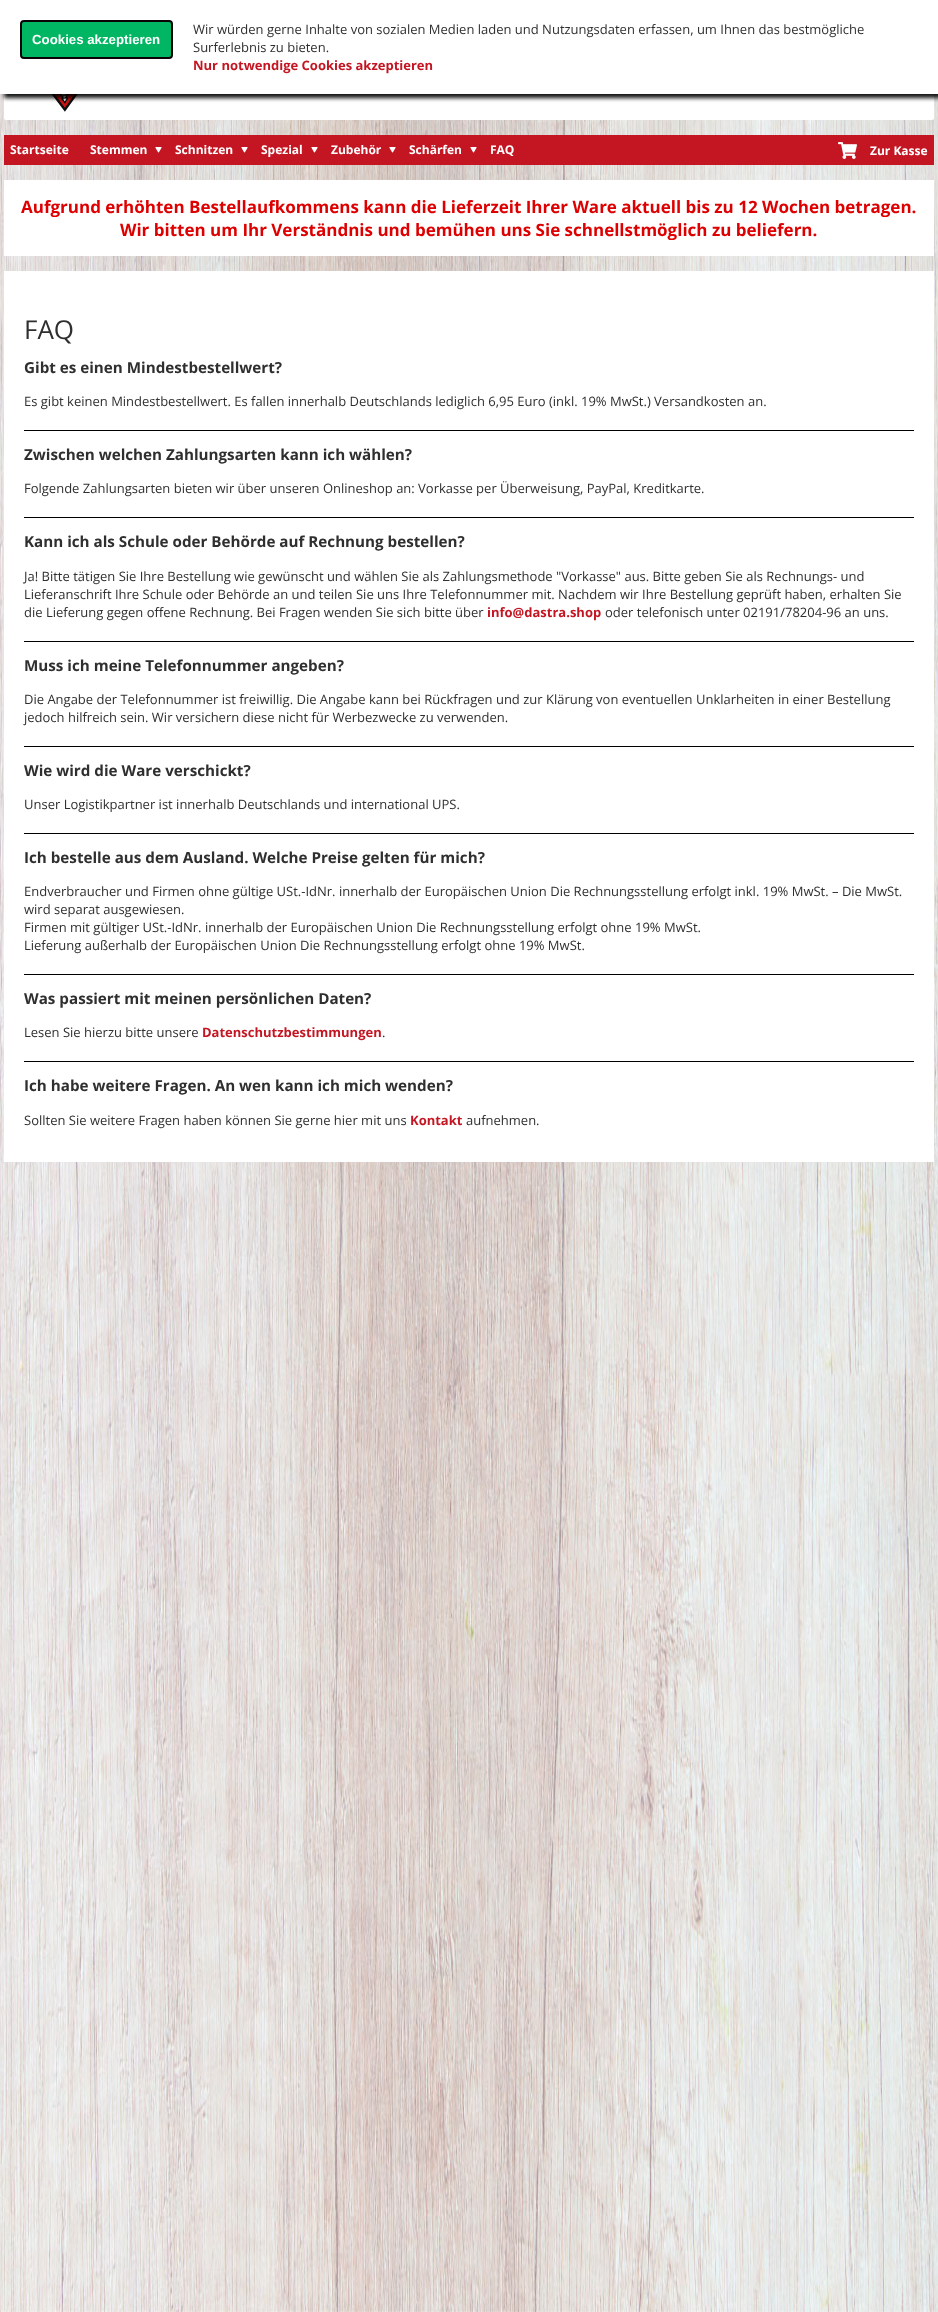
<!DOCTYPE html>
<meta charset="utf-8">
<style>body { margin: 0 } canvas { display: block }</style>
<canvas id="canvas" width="938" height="2312"></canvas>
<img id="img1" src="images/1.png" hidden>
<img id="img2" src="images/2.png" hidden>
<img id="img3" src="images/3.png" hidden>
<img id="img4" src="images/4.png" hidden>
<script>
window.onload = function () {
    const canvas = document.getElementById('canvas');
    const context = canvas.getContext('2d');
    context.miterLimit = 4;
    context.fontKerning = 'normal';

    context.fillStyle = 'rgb(255, 255, 255)';
    context.fillRect(0, 0, 938, 2312);
    context.drawImage(document.getElementById('img1'), 0, 94, 938, 2218);
    context.beginPath();
    context.roundRect(4, 0, 930, 120, [0, 0, 2, 2]);
    context.fill();
    context.drawImage(document.getElementById('img2'), 51, 94, 27, 18);
    context.fillStyle = 'rgba(0, 0, 0, 0.93)';
    context.filter = 'blur(2px)';
    context.beginPath();
    context.rect(4, 4, 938, 94);
    context.fill();
    context.filter = 'none';
    context.fillStyle = 'rgb(255, 255, 255)';
    context.fillRect(0, 0, 938, 94);
    context.fillStyle = 'rgb(0, 182, 99)';
    context.beginPath();
    context.roundRect(21, 21, 151, 37, 3);
    context.fill();
    context.strokeStyle = 'rgb(11, 2, 7)';
    context.lineWidth = 2;
    context.stroke();
    context.fillStyle = 'rgb(195, 22, 34)';
    context.fillRect(4, 135, 930, 30);
    context.drawImage(document.getElementById('img3'), 155, 147, 7, 6);
    context.drawImage(document.getElementById('img3'), 241, 147, 7, 6);
    context.drawImage(document.getElementById('img3'), 311, 147, 7, 6);
    context.drawImage(document.getElementById('img3'), 389, 147, 7, 6);
    context.drawImage(document.getElementById('img3'), 470, 147, 7, 6);
    context.drawImage(document.getElementById('img4'), 838, 142, 19, 17);
    context.fillStyle = 'rgb(255, 255, 255)';
    context.fillRect(4, 180, 930, 76);
    context.fillRect(4, 271, 930, 891);
    context.fillStyle = 'rgb(0, 0, 0)';
    context.fillRect(24, 430, 890, 1);
    context.fillRect(24, 517, 890, 1);
    context.fillRect(24, 641, 890, 1);
    context.fillRect(24, 746, 890, 1);
    context.fillRect(24, 833, 890, 1);
    context.fillRect(24, 974, 890, 1);
    context.fillRect(24, 1061, 890, 1);
    context.font = '13px Open Sans';
    context.fillStyle = 'rgb(47, 47, 47)';
    context.fillText('Wir würden gerne Inhalte von sozialen Medien laden und Nutzungsdaten erfassen, um Ihnen das bestmögliche', 193, 34);
    context.font = 'bold 13.25px Liberation Sans';
    context.fillStyle = 'rgb(255, 255, 255)';
    context.fillText('Cookies akzeptieren', 32, 44);
    context.font = '13px Open Sans';
    context.fillStyle = 'rgb(47, 47, 47)';
    context.fillText('Surferlebnis zu bieten.', 193, 52);
    context.font = 'bold 13px Open Sans';
    context.fillStyle = 'rgb(195, 22, 34)';
    context.fillText('Nur notwendige Cookies akzeptieren', 193, 70);
    context.font = 'bold 12px Open Sans';
    context.fillStyle = 'rgb(255, 255, 255)';
    context.fillText('Startseite', 10, 154);
    context.fillText('Stemmen', 90, 154);
    context.fillText('Schnitzen', 175, 154);
    context.fillText('Spezial', 261, 154);
    context.fillText('Zubehör', 331, 154);
    context.fillText('Schärfen', 409, 154);
    context.fillText('FAQ', 490, 154);
    context.fillText('Zur Kasse', 870, 155);
    context.font = 'bold 17px Open Sans';
    context.fillStyle = 'rgb(222, 0, 0)';
    context.fillText('Aufgrund erhöhten Bestellaufkommens kann die Lieferzeit Ihrer Ware aktuell bis zu 12 Wochen betragen.', 21, 213);
    context.fillText('Wir bitten um Ihr Verständnis und bemühen uns Sie schnellstmöglich zu beliefern.', 120, 236);
    context.font = '26px Open Sans';
    context.fillStyle = 'rgb(47, 47, 47)';
    context.fillText('FAQ', 24, 339);
    context.font = 'bold 15.2px Open Sans';
    context.fillText('Gibt es einen Mindestbestellwert?', 24, 373);
    context.font = '13px Open Sans';
    context.fillText('Es gibt keinen Mindestbestellwert. Es fallen innerhalb Deutschlands lediglich 6,95 Euro (inkl. 19% MwSt.) Versandkosten an.', 24, 406);
    context.font = 'bold 15.2px Open Sans';
    context.fillText('Zwischen welchen Zahlungsarten kann ich wählen?', 24, 460);
    context.font = '13px Open Sans';
    context.fillText('Folgende Zahlungsarten bieten wir über unseren Onlineshop an: Vorkasse per Überweisung, PayPal, Kreditkarte.', 24, 493);
    context.font = 'bold 15.2px Open Sans';
    context.fillText('Kann ich als Schule oder Behörde auf Rechnung bestellen?', 24, 547);
    context.font = '13px Open Sans';
    context.fillText('Ja! Bitte tätigen Sie Ihre Bestellung wie gewünscht und wählen Sie als Zahlungsmethode "Vorkasse" aus. Bitte geben Sie als Rechnungs- und', 24, 581);
    context.fillText('Lieferanschrift Ihre Schule oder Behörde an und teilen Sie uns Ihre Telefonnummer mit. Nachdem wir Ihre Bestellung geprüft haben, erhalten Sie', 24, 599);
    context.fillText('die Lieferung gegen offene Rechnung. Bei Fragen wenden Sie sich bitte über', 24, 617);
    context.font = 'bold 13px Open Sans';
    context.fillStyle = 'rgb(195, 22, 34)';
    context.fillText('info@dastra.shop', 487, 617);
    context.font = '13px Open Sans';
    context.fillStyle = 'rgb(47, 47, 47)';
    context.fillText('oder telefonisch unter 02191/78204-96 an uns.', 605, 617);
    context.font = 'bold 15.2px Open Sans';
    context.fillText('Muss ich meine Telefonnummer angeben?', 24, 671);
    context.font = '13px Open Sans';
    context.fillText('Die Angabe der Telefonnummer ist freiwillig. Die Angabe kann bei Rückfragen und zur Klärung von eventuellen Unklarheiten in einer Bestellung', 24, 704);
    context.fillText('jedoch hilfreich sein. Wir versichern diese nicht für Werbezwecke zu verwenden.', 24, 722);
    context.font = 'bold 15.2px Open Sans';
    context.fillText('Wie wird die Ware verschickt?', 24, 776);
    context.font = '13px Open Sans';
    context.fillText('Unser Logistikpartner ist innerhalb Deutschlands und international UPS.', 24, 809);
    context.font = 'bold 15.2px Open Sans';
    context.fillText('Ich bestelle aus dem Ausland. Welche Preise gelten für mich?', 24, 863);
    context.font = '13px Open Sans';
    context.fillText('Endverbraucher und Firmen ohne gültige USt.-IdNr. innerhalb der Europäischen Union Die Rechnungsstellung erfolgt inkl. 19% MwSt. – Die MwSt.', 24, 896);
    context.fillText('wird separat ausgewiesen.', 24, 914);
    context.fillText('Firmen mit gültiger USt.-IdNr. innerhalb der Europäischen Union Die Rechnungsstellung erfolgt ohne 19% MwSt.', 24, 932);
    context.fillText('Lieferung außerhalb der Europäischen Union Die Rechnungsstellung erfolgt ohne 19% MwSt.', 24, 950);
    context.font = 'bold 15.2px Open Sans';
    context.fillText('Was passiert mit meinen persönlichen Daten?', 24, 1004);
    context.font = '13px Open Sans';
    context.fillText('Lesen Sie hierzu bitte unsere', 24, 1037);
    context.font = 'bold 13px Open Sans';
    context.fillStyle = 'rgb(195, 22, 34)';
    context.fillText('Datenschutzbestimmungen', 202, 1037);
    context.font = '13px Open Sans';
    context.fillStyle = 'rgb(47, 47, 47)';
    context.fillText('.', 382, 1037);
    context.font = 'bold 15.2px Open Sans';
    context.fillText('Ich habe weitere Fragen. An wen kann ich mich wenden?', 24, 1091);
    context.font = '13px Open Sans';
    context.fillText('Sollten Sie weitere Fragen haben können Sie gerne hier mit uns', 24, 1125);
    context.font = 'bold 13px Open Sans';
    context.fillStyle = 'rgb(195, 22, 34)';
    context.fillText('Kontakt', 410, 1125);
    context.font = '13px Open Sans';
    context.fillStyle = 'rgb(47, 47, 47)';
    context.fillText('aufnehmen.', 466, 1125);
};
</script>
